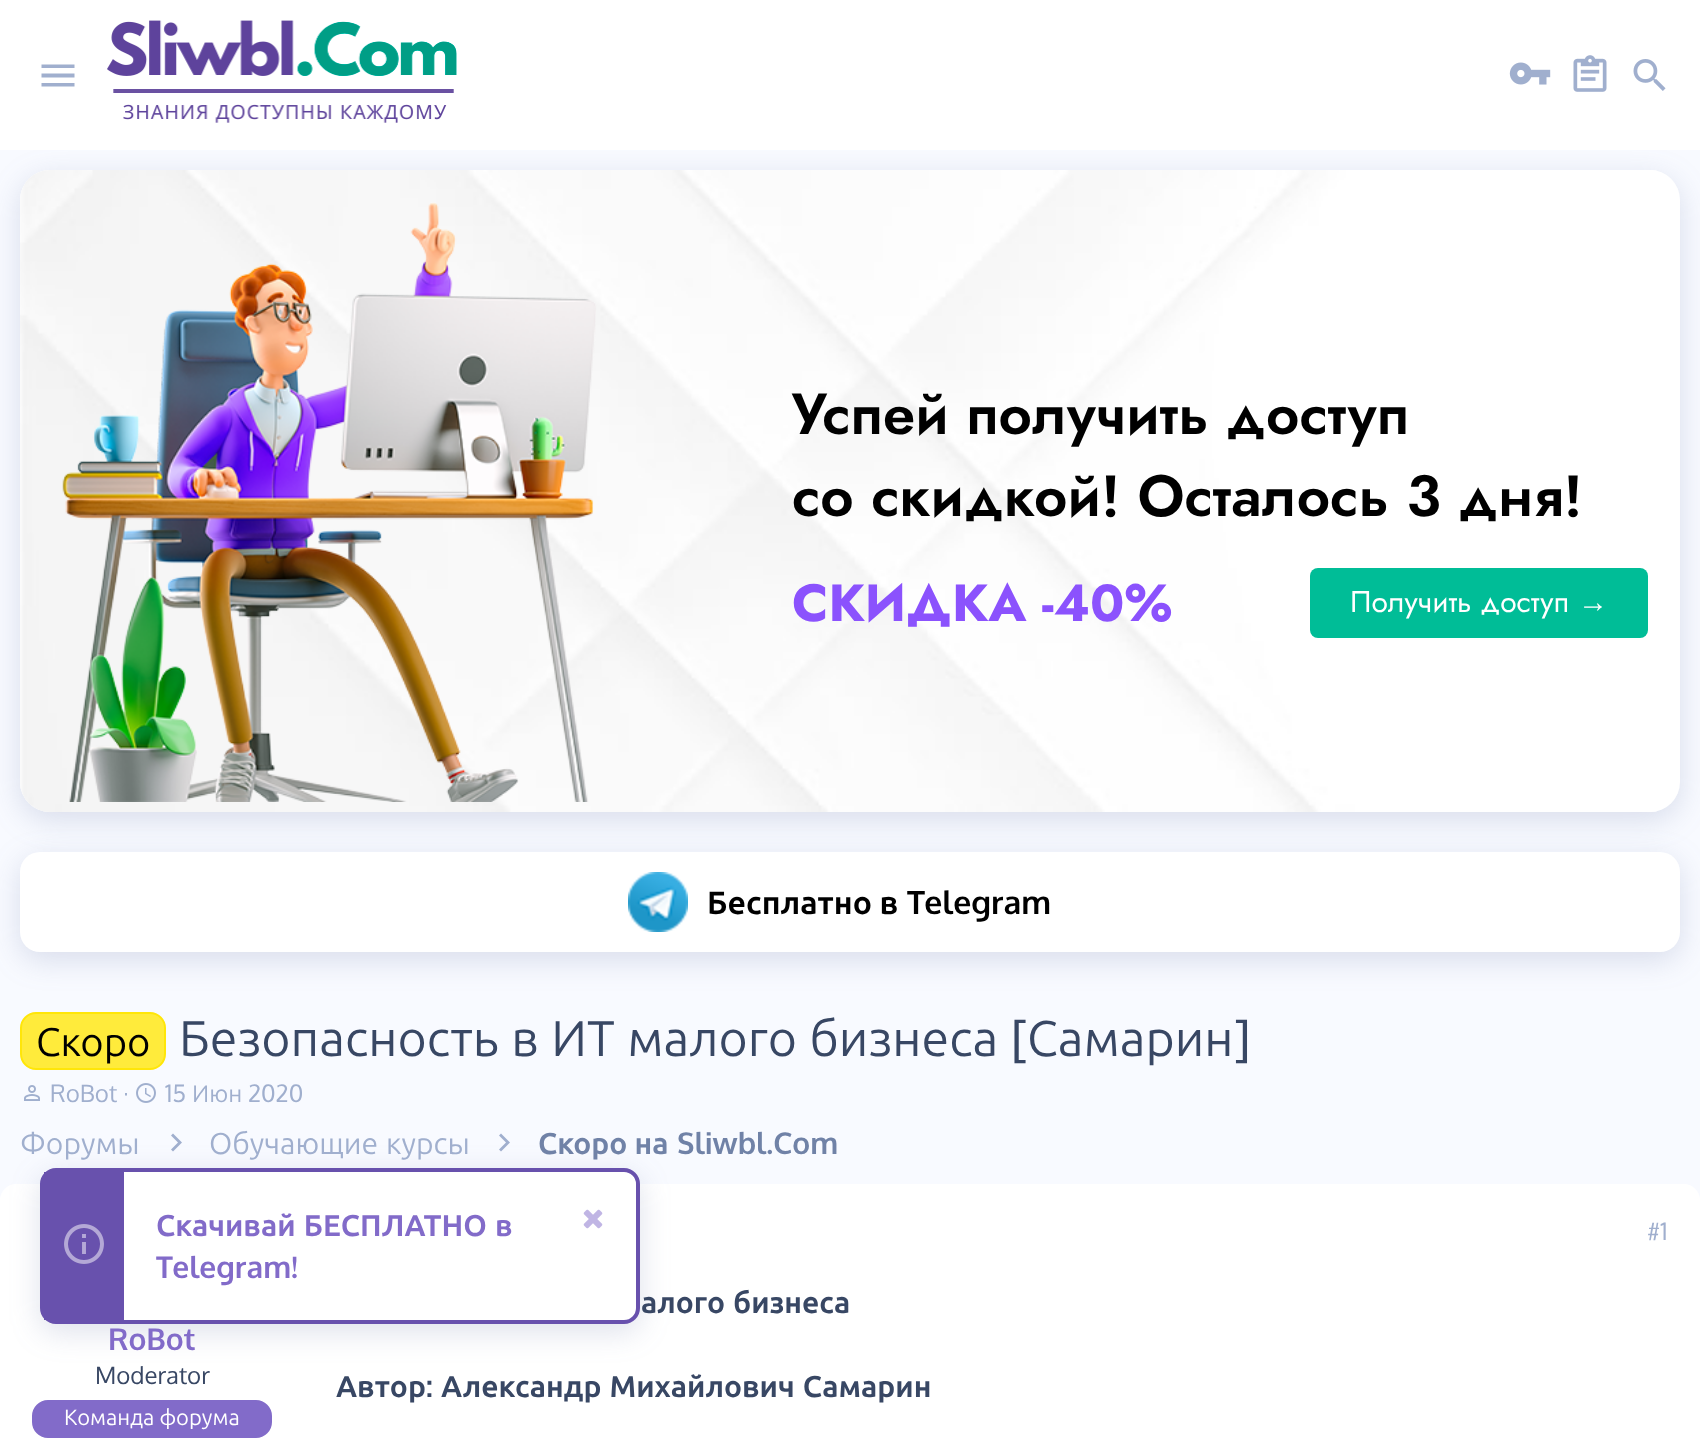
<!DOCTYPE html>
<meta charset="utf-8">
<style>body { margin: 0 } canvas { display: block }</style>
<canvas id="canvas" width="1700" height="1443"></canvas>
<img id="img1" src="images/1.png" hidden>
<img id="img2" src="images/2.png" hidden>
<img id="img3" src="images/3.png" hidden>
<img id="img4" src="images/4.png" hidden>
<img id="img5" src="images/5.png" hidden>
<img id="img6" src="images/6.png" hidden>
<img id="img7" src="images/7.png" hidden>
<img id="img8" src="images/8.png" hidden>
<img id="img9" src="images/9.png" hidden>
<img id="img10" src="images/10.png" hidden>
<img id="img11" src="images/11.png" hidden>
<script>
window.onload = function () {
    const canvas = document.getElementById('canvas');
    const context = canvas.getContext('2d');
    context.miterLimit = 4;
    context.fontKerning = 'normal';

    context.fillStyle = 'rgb(248, 250, 255)';
    context.fillRect(0, 0, 1700, 1443);
    context.fillStyle = 'rgba(88, 106, 153, 0.2)';
    context.filter = 'blur(15px)';
    context.beginPath();
    context.roundRect(20, 860, 1660, 100, 20);
    context.fill();
    context.filter = 'none';
    context.fillStyle = 'rgb(255, 255, 255)';
    context.beginPath();
    context.roundRect(20, 852, 1660, 100, 20);
    context.fill();
    context.fillStyle = 'rgba(88, 106, 153, 0.2)';
    context.filter = 'blur(15px)';
    context.beginPath();
    context.roundRect(20, 178, 1660, 642, 30);
    context.fill();
    context.filter = 'none';
    context.fillStyle = 'rgb(255, 255, 255)';
    context.fillRect(0, 0, 1700, 150);
    context.fillStyle = 'rgb(160, 175, 206)';
    context.beginPath();
    context.moveTo(41.5, 64.5);
    context.lineTo(74.5, 64.5);
    context.lineTo(74.5, 68);
    context.lineTo(41.5, 68);
    context.closePath();
    context.moveTo(41.5, 73.5);
    context.lineTo(74.5, 73.5);
    context.lineTo(74.5, 77.5);
    context.lineTo(41.5, 77.5);
    context.closePath();
    context.moveTo(41.5, 83);
    context.lineTo(74.5, 83);
    context.lineTo(74.5, 86.5);
    context.lineTo(41.5, 86.5);
    context.closePath();
    context.fill();
    context.drawImage(document.getElementById('img1'), 107, 20, 350, 103);
    context.drawImage(document.getElementById('img2'), 1509, 62, 42, 23);
    context.drawImage(document.getElementById('img3'), 1573, 55, 34, 37);
    context.drawImage(document.getElementById('img4'), 1633, 59, 33, 32);
    context.fillStyle = 'rgb(255, 255, 255)';
    context.beginPath();
    context.roundRect(20, 170, 1660, 642, 30);
    context.fill();
    context.drawImage(document.getElementById('img5'), 20, 170, 1637, 642);
    context.drawImage(document.getElementById('img6'), 62, 202, 534, 600);
    context.fillStyle = 'rgb(0, 189, 151)';
    context.beginPath();
    context.roundRect(1310, 568, 338, 70, 8);
    context.fill();
    context.drawImage(document.getElementById('img7'), 628, 872, 60, 60);
    context.fillStyle = 'rgb(255, 235, 59)';
    context.beginPath();
    context.roundRect(21, 1013, 144, 56, 15);
    context.fill();
    context.strokeStyle = 'rgb(255, 230, 8)';
    context.lineWidth = 2;
    context.stroke();
    context.drawImage(document.getElementById('img8'), 24, 1085, 16, 16);
    context.drawImage(document.getElementById('img9'), 136, 1083, 20, 20);
    context.fillStyle = 'rgb(160, 175, 206)';
    context.beginPath();
    context.moveTo(171, 1149.5);
    context.lineTo(178, 1142.5);
    context.lineTo(171, 1135.5);
    context.lineTo(173, 1133.5);
    context.lineTo(182, 1142.5);
    context.lineTo(173, 1151.5);
    context.closePath();
    context.fill();
    context.beginPath();
    context.moveTo(499, 1149.5);
    context.lineTo(506, 1142.5);
    context.lineTo(499, 1135.5);
    context.lineTo(501, 1133.5);
    context.lineTo(510, 1142.5);
    context.lineTo(501, 1151.5);
    context.closePath();
    context.fill();
    context.fillStyle = 'rgb(255, 255, 255)';
    context.beginPath();
    context.roundRect(0, 1184, 1700, 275, 16);
    context.fill();
    context.fillStyle = 'rgb(130, 107, 201)';
    context.beginPath();
    context.roundRect(33, 1401, 238, 36, 15);
    context.fill();
    context.strokeStyle = 'rgb(130, 107, 201)';
    context.stroke();
    context.fillStyle = 'rgba(88, 106, 153, 0.2)';
    context.filter = 'blur(15px)';
    context.beginPath();
    context.roundRect(40, 1176, 600, 156, 16);
    context.fill();
    context.filter = 'none';
    context.fillStyle = 'rgb(255, 255, 255)';
    context.beginPath();
    context.roundRect(42, 1170, 596, 152, 14);
    context.fill();
    context.strokeStyle = 'rgb(104, 81, 173)';
    context.lineWidth = 4;
    context.stroke();
    context.fillStyle = 'rgb(104, 81, 173)';
    context.fillRect(44, 1172, 80, 148);
    context.drawImage(document.getElementById('img10'), 64, 1224, 40, 40);
    context.drawImage(document.getElementById('img11'), 583, 1209, 20, 20);
    context.font = '600 58px Jost';
    context.fillStyle = 'rgb(0, 0, 0)';
    context.fillText('Успей получить доступ', 792, 434);
    context.fillText('со скидкой! Осталось 3 дня!', 792, 516);
    context.font = 'bold 52px Jost';
    context.fillStyle = 'rgb(139, 82, 253)';
    context.fillText('СКИДКА -40%', 792, 621);
    context.font = '30px Jost';
    context.fillStyle = 'rgb(255, 255, 255)';
    context.fillText('Получить доступ', 1350, 612);
    context.font = '30px Liberation Sans';
    context.fillText('→', 1578, 612);
    context.font = 'bold 32px Ubuntu';
    context.fillStyle = 'rgb(0, 0, 0)';
    context.fillText('Бесплатно в', 707, 914);
    context.font = 'bold 32px Oxygen';
    context.fillText('Telegram', 907, 914);
    context.font = '40px Ubuntu';
    context.fillText('Скоро', 36, 1056);
    context.wordSpacing = '1px';
    context.font = '50px Ubuntu';
    context.fillStyle = 'rgb(56, 71, 100)';
    context.fillText('Безопасность в ИТ малого бизнеса', 179, 1056);
    context.wordSpacing = '0px';
    context.font = '50px Oxygen';
    context.fillText('[', 1011, 1056);
    context.font = '50px Ubuntu';
    context.fillText('Самарин', 1027, 1056);
    context.font = '50px Oxygen';
    context.fillText(']', 1234, 1056);
    context.font = '24px Oxygen';
    context.fillStyle = 'rgb(160, 175, 206)';
    context.fillText('RoBot ·', 50, 1102);
    context.fillText('15', 165, 1102);
    context.font = '24px Ubuntu';
    context.fillText('Июн', 192, 1102);
    context.font = '24px Oxygen';
    context.fillText('2020', 248, 1102);
    context.font = '30px Ubuntu';
    context.fillText('Форумы', 20, 1154);
    context.wordSpacing = '1px';
    context.fillText('Обучающие курсы', 209, 1154);
    context.wordSpacing = '0px';
    context.font = 'bold 30px Ubuntu';
    context.fillStyle = 'rgb(112, 130, 167)';
    context.fillText('Скоро на', 538, 1154);
    context.font = 'bold 30px Oxygen';
    context.fillText('Sliwbl.Com', 677, 1154);
    context.fillStyle = 'rgb(130, 107, 201)';
    context.fillText('RoBot', 108, 1350);
    context.font = '24px Oxygen';
    context.fillStyle = 'rgb(56, 71, 100)';
    context.fillText('Moderator', 95, 1384);
    context.font = '22px Ubuntu';
    context.fillStyle = 'rgb(255, 255, 255)';
    context.fillText('Команда форума', 64, 1425);
    context.font = '24px Oxygen';
    context.fillStyle = 'rgb(160, 175, 206)';
    context.fillText('#1', 1647, 1240);
    context.wordSpacing = '1px';
    context.font = 'bold 30px Ubuntu';
    context.fillStyle = 'rgb(56, 71, 100)';
    context.fillText('алого бизнеса', 641, 1313);
    context.wordSpacing = '0px';
    context.fillText('Автор', 336, 1397);
    context.font = 'bold 30px Oxygen';
    context.fillText(':', 426, 1397);
    context.wordSpacing = '1px';
    context.font = 'bold 30px Ubuntu';
    context.fillText('Александр Михайлович Самарин', 441, 1397);
    context.fillStyle = 'rgb(130, 107, 201)';
    context.fillText('Скачивай БЕСПЛАТНО в', 156, 1236);
    context.wordSpacing = '0px';
    context.font = 'bold 30px Oxygen';
    context.fillText('Telegram!', 156, 1278);
};
</script>
